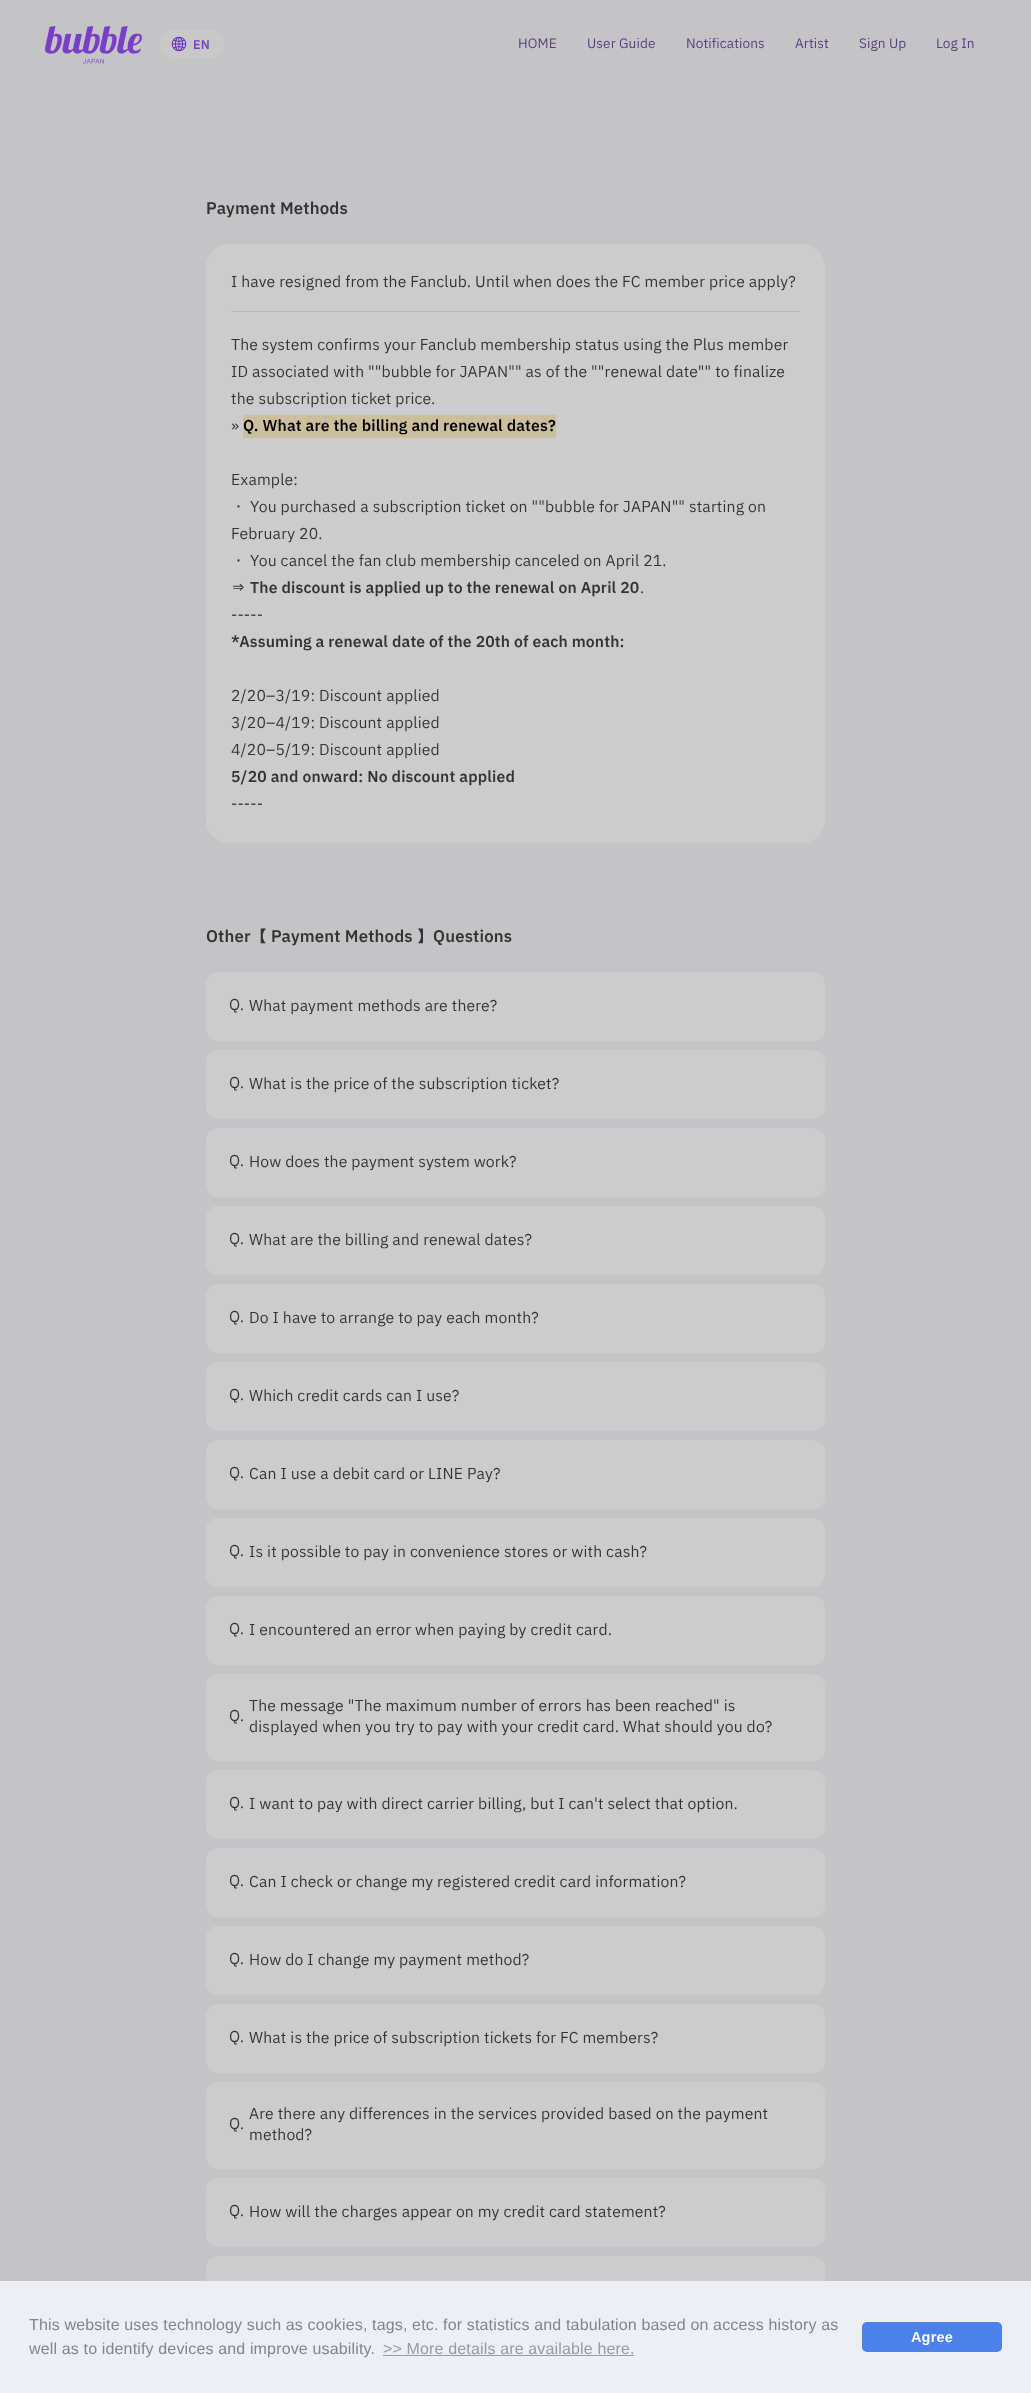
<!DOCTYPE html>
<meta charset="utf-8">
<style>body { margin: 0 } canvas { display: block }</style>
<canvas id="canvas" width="1031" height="2393"></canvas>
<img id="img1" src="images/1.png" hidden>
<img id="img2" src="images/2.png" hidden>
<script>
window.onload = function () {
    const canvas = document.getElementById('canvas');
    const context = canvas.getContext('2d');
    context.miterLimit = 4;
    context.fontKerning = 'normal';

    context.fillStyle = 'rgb(196, 195, 197)';
    context.fillRect(0, 0, 1031, 2393);
    context.drawImage(document.getElementById('img1'), 45, 26, 97, 38);
    context.fillStyle = 'rgb(200, 200, 201)';
    context.beginPath();
    context.roundRect(160, 30, 65, 28, 14);
    context.fill();
    context.drawImage(document.getElementById('img2'), 171, 36, 16, 16);
    context.fillStyle = 'rgb(204, 204, 204)';
    context.beginPath();
    context.roundRect(206, 244, 619, 599, 23);
    context.fill();
    context.fillStyle = 'rgb(184, 184, 184)';
    context.fillRect(231, 311, 569, 1);
    context.fillStyle = 'rgb(204, 191, 158)';
    context.fillRect(243, 415, 313, 23);
    context.fillStyle = 'rgb(204, 204, 204)';
    context.beginPath();
    context.roundRect(206, 972, 619, 69, 12);
    context.fill();
    context.beginPath();
    context.roundRect(206, 1050, 619, 69, 12);
    context.fill();
    context.beginPath();
    context.roundRect(206, 1128, 619, 69, 12);
    context.fill();
    context.beginPath();
    context.roundRect(206, 1206, 619, 69, 12);
    context.fill();
    context.beginPath();
    context.roundRect(206, 1284, 619, 69, 12);
    context.fill();
    context.beginPath();
    context.roundRect(206, 1362, 619, 69, 12);
    context.fill();
    context.beginPath();
    context.roundRect(206, 1440, 619, 69, 12);
    context.fill();
    context.beginPath();
    context.roundRect(206, 1518, 619, 69, 12);
    context.fill();
    context.beginPath();
    context.roundRect(206, 1596, 619, 69, 12);
    context.fill();
    context.beginPath();
    context.roundRect(206, 1674, 619, 87, 12);
    context.fill();
    context.beginPath();
    context.roundRect(206, 1770, 619, 69, 12);
    context.fill();
    context.beginPath();
    context.roundRect(206, 1848, 619, 69, 12);
    context.fill();
    context.beginPath();
    context.roundRect(206, 1926, 619, 69, 12);
    context.fill();
    context.beginPath();
    context.roundRect(206, 2004, 619, 69, 12);
    context.fill();
    context.beginPath();
    context.roundRect(206, 2082, 619, 87, 12);
    context.fill();
    context.beginPath();
    context.roundRect(206, 2178, 619, 69, 12);
    context.fill();
    context.beginPath();
    context.roundRect(206, 2256, 619, 69, 12);
    context.fill();
    context.fillStyle = 'rgb(237, 239, 245)';
    context.fillRect(0, 2281, 1031, 112);
    context.fillStyle = 'rgb(152, 153, 165)';
    context.fillRect(383, 2355, 251, 1);
    context.fillStyle = 'rgb(75, 129, 232)';
    context.beginPath();
    context.roundRect(862, 2322, 140, 30, 5);
    context.fill();
    context.letterSpacing = '0.15px';
    context.font = '600 12px IBM Plex Sans JP';
    context.fillStyle = 'rgb(121, 62, 198)';
    context.fillText('EN', 193, 49);
    context.letterSpacing = '0.1px';
    context.font = '13px IBM Plex Sans JP';
    context.fillStyle = 'rgb(87, 60, 124)';
    context.fillText('HOME', 518, 48);
    context.fillText('User Guide', 587, 48);
    context.fillText('Notifications', 686, 48);
    context.fillText('Artist', 795, 48);
    context.fillText('Sign Up', 859, 48);
    context.fillText('Log In', 936, 48);
    context.letterSpacing = '0.15px';
    context.font = '600 16px IBM Plex Sans JP';
    context.fillStyle = 'rgb(51, 51, 51)';
    context.fillText('Payment Methods', 206, 214);
    context.font = '15px IBM Plex Sans JP';
    context.fillText('I have resigned from the Fanclub. Until when does the FC member price apply?', 231, 287);
    context.fillText('The system confirms your Fanclub membership status using the Plus member', 231, 350);
    context.fillText('ID associated with ""bubble for JAPAN"" as of the ""renewal date"" to finalize', 231, 377);
    context.fillText('the subscription ticket price.', 231, 404);
    context.fillText('»', 231, 431);
    context.font = '600 15px IBM Plex Sans JP';
    context.fillStyle = 'rgb(0, 0, 0)';
    context.fillText('Q. What are the billing and renewal dates?', 243, 431);
    context.font = '15px IBM Plex Sans JP';
    context.fillStyle = 'rgb(51, 51, 51)';
    context.fillText('Example:', 231, 485);
    context.fillText('・ You purchased a subscription ticket on ""bubble for JAPAN"" starting on', 231, 512);
    context.fillText('February 20.', 231, 539);
    context.fillText('・ You cancel the fan club membership canceled on April 21.', 231, 566);
    context.font = '600 15px IBM Plex Sans JP';
    context.fillText('⇒ The discount is applied up to the renewal on April 20', 231, 593);
    context.font = '15px IBM Plex Sans JP';
    context.fillText('.', 640, 593);
    context.fillText('-----', 231, 620);
    context.font = '600 15px IBM Plex Sans JP';
    context.fillText('*Assuming a renewal date of the 20th of each month:', 231, 647);
    context.font = '15px IBM Plex Sans JP';
    context.fillText('2/20–3/19: Discount applied', 231, 701);
    context.fillText('3/20–4/19: Discount applied', 231, 728);
    context.fillText('4/20–5/19: Discount applied', 231, 755);
    context.font = '600 15px IBM Plex Sans JP';
    context.fillText('5/20 and onward: No discount applied', 231, 782);
    context.font = '15px IBM Plex Sans JP';
    context.fillText('-----', 231, 809);
    context.font = '600 16px IBM Plex Sans JP';
    context.fillText('Other【 Payment Methods 】Questions', 206, 942);
    context.font = '15px IBM Plex Sans JP';
    context.fillText('Q.', 229, 1010);
    context.fillText('What payment methods are there?', 249, 1011);
    context.fillText('Q.', 229, 1088);
    context.fillText('What is the price of the subscription ticket?', 249, 1089);
    context.fillText('Q.', 229, 1166);
    context.fillText('How does the payment system work?', 249, 1167);
    context.fillText('Q.', 229, 1244);
    context.fillText('What are the billing and renewal dates?', 249, 1245);
    context.fillText('Q.', 229, 1322);
    context.fillText('Do I have to arrange to pay each month?', 249, 1323);
    context.fillText('Q.', 229, 1400);
    context.fillText('Which credit cards can I use?', 249, 1401);
    context.fillText('Q.', 229, 1478);
    context.fillText('Can I use a debit card or LINE Pay?', 249, 1479);
    context.fillText('Q.', 229, 1556);
    context.fillText('Is it possible to pay in convenience stores or with cash?', 249, 1557);
    context.fillText('Q.', 229, 1634);
    context.fillText('I encountered an error when paying by credit card.', 249, 1635);
    context.fillText('Q.', 229, 1721);
    context.fillText('The message "The maximum number of errors has been reached" is', 249, 1711);
    context.fillText('displayed when you try to pay with your credit card. What should you do?', 249, 1732);
    context.fillText('Q.', 229, 1808);
    context.fillText('I want to pay with direct carrier billing, but I can\'t select that option.', 249, 1809);
    context.fillText('Q.', 229, 1886);
    context.fillText('Can I check or change my registered credit card information?', 249, 1887);
    context.fillText('Q.', 229, 1964);
    context.fillText('How do I change my payment method?', 249, 1965);
    context.fillText('Q.', 229, 2042);
    context.fillText('What is the price of subscription tickets for FC members?', 249, 2043);
    context.fillText('Q.', 229, 2129);
    context.fillText('Are there any differences in the services provided based on the payment', 249, 2119);
    context.fillText('method?', 249, 2140);
    context.fillText('Q.', 229, 2216);
    context.fillText('How will the charges appear on my credit card statement?', 249, 2217);
    context.font = '16px Liberation Sans';
    context.fillStyle = 'rgb(131, 131, 145)';
    context.fillText('This website uses technology such as cookies, tags, etc. for statistics and tabulation based on access history as', 29, 2330);
    context.fillText('well as to identify devices and improve usability.', 29, 2354);
    context.fillStyle = 'rgb(152, 153, 165)';
    context.fillText('>> More details are available here.', 383, 2354);
    context.font = 'bold 14.5px Liberation Sans';
    context.fillStyle = 'rgb(255, 255, 255)';
    context.fillText('Agree', 911, 2342);
};
</script>
